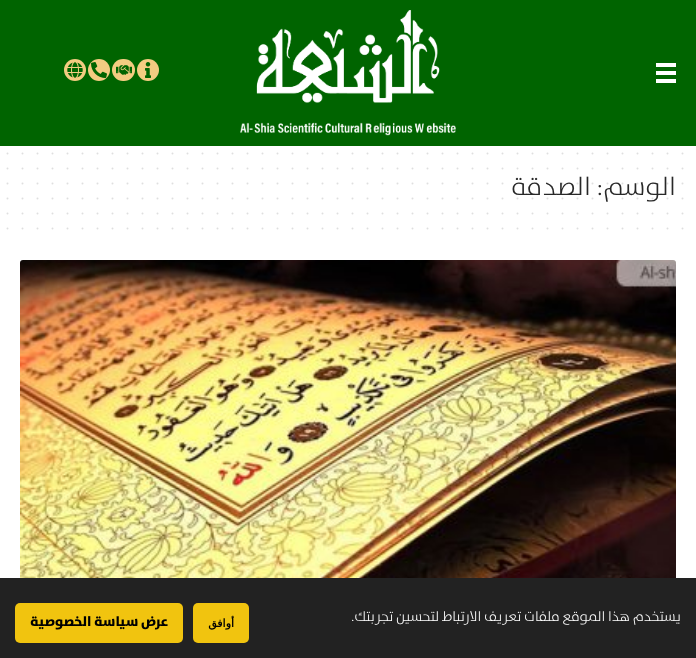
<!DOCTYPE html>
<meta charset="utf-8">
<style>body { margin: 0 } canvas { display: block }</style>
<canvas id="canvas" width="696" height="658"></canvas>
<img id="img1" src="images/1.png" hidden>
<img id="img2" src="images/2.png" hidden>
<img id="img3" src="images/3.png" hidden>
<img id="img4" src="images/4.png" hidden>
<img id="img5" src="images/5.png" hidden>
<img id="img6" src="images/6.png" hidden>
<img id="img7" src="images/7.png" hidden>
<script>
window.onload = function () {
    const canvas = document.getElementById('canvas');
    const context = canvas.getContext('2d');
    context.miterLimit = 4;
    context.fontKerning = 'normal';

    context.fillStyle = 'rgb(255, 255, 255)';
    context.fillRect(0, 0, 696, 658);
    context.fillStyle = 'rgb(0, 100, 0)';
    context.fillRect(0, 0, 696, 146);
    context.drawImage(document.getElementById('img1'), 656, 63, 20, 20);
    context.drawImage(document.getElementById('img2'), 240, 10, 216, 126);
    context.fillStyle = 'rgb(243, 204, 129)';
    context.beginPath();
    context.arc(148, 70, 11, 0, 2 * Math.PI);
    context.fill();
    context.drawImage(document.getElementById('img3'), 145, 62, 6, 16);
    context.beginPath();
    context.roundRect(112, 59, 23, 22, 11);
    context.fill();
    context.drawImage(document.getElementById('img4'), 116, 65, 16, 10);
    context.beginPath();
    context.arc(99, 70, 11, 0, 2 * Math.PI);
    context.fill();
    context.drawImage(document.getElementById('img5'), 91, 62, 16, 16);
    context.beginPath();
    context.arc(75, 70, 11, 0, 2 * Math.PI);
    context.fill();
    context.drawImage(document.getElementById('img6'), 67, 62, 16, 16);
    context.beginPath();
    context.moveTo(7.5, 153.5);
    context.lineTo(682.7, 153.5);
    context.strokeStyle = 'rgb(223, 223, 223)';
    context.lineWidth = 2;
    context.lineCap = 'round';
    context.setLineDash([0, 15]);
    context.stroke();
    context.beginPath();
    context.moveTo(7.5, 168.5);
    context.lineTo(682.7, 168.5);
    context.stroke();
    context.beginPath();
    context.moveTo(7.5, 213.5);
    context.lineTo(682.7, 213.5);
    context.stroke();
    context.beginPath();
    context.moveTo(7.5, 228.5);
    context.lineTo(682.7, 228.5);
    context.stroke();
    context.drawImage(document.getElementById('img7'), 20, 260, 656, 318);
    context.fillStyle = 'rgb(34, 34, 34)';
    context.fillRect(0, 578, 696, 80);
    context.fillStyle = 'rgb(241, 196, 15)';
    context.beginPath();
    context.roundRect(193, 603, 56, 40, 5);
    context.fill();
    context.beginPath();
    context.roundRect(15, 603, 168, 40, 5);
    context.fill();
    context.direction = 'rtl';
    context.font = '300 26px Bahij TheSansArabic';
    context.fillStyle = 'rgb(40, 40, 40)';
    context.fillText('الوسم:', 676, 195);
    context.beginPath();
    context.moveTo(7.5, 198.5);
    context.lineTo(682.7, 198.5);
    context.strokeStyle = 'rgba(40, 40, 40, 0.15)';
    context.stroke();
    context.fillText('الصدقة', 591, 195);
    context.beginPath();
    context.moveTo(7.5, 183.5);
    context.lineTo(682.7, 183.5);
    context.stroke();
    context.font = '300 14px Bahij TheSansArabic';
    context.fillStyle = 'rgb(255, 255, 255)';
    context.fillText('يستخدم هذا الموقع ملفات تعريف الارتباط لتحسين تجربتك.', 681, 621);
    context.font = 'bold 11px DejaVu Sans';
    context.fillStyle = 'rgb(0, 0, 0)';
    context.fillText('أوافق', 234, 627);
    context.font = '800 14px Bahij TheSansArabic';
    context.fillText('عرض سياسة الخصوصية', 168, 626);
};
</script>
